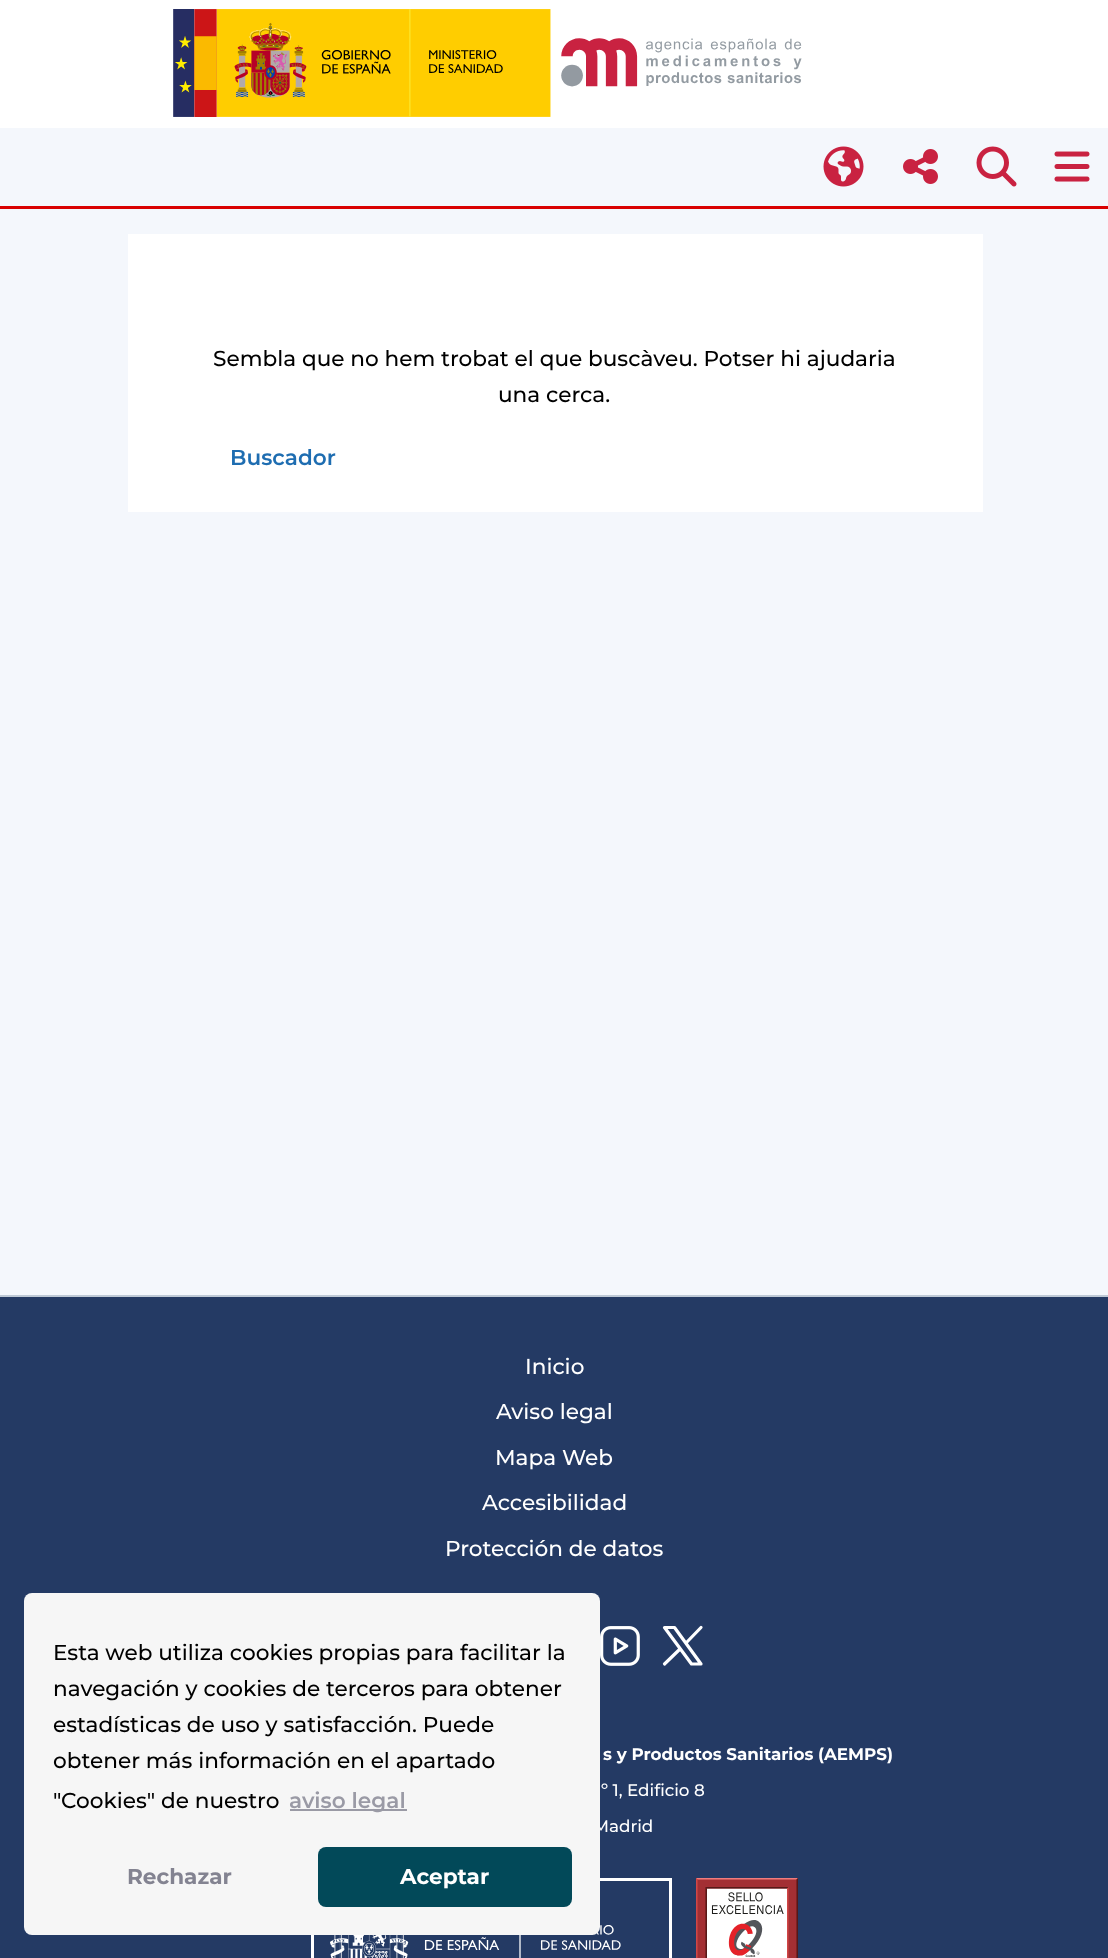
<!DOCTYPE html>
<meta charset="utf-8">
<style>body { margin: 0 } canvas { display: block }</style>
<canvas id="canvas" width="1108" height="1958"></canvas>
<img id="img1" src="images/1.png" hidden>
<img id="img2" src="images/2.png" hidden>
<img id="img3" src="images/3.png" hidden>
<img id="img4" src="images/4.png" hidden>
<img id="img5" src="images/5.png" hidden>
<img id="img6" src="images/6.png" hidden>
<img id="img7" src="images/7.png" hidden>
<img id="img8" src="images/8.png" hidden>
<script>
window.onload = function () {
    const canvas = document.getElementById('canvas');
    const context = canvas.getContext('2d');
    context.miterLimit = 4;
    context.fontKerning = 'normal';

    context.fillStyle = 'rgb(244, 247, 252)';
    context.fillRect(0, 0, 1108, 1958);
    context.fillStyle = 'rgb(255, 255, 255)';
    context.fillRect(0, 0, 1108, 128);
    context.drawImage(document.getElementById('img1'), 173, 9, 629, 108);
    context.fillStyle = 'rgb(217, 0, 1)';
    context.fillRect(0, 206, 1108, 3);
    context.drawImage(document.getElementById('img2'), 823, 146, 41, 41);
    context.drawImage(document.getElementById('img3'), 903, 149, 35, 35);
    context.drawImage(document.getElementById('img4'), 976, 146, 41, 41);
    context.drawImage(document.getElementById('img5'), 1054, 151, 36, 31);
    context.strokeStyle = 'rgb(255, 255, 255)';
    context.lineWidth = 23;
    context.strokeRect(139.5, 245.5, 832, 255);
    context.fillStyle = 'rgb(255, 255, 255)';
    context.fillRect(151, 257, 809, 232);
    context.fillStyle = 'rgb(36, 58, 100)';
    context.fillRect(0, 1297, 1108, 661);
    context.fillStyle = 'rgb(190, 201, 214)';
    context.fillRect(0, 1295, 1108, 2);
    context.drawImage(document.getElementById('img6'), 600, 1626, 40, 40);
    context.beginPath();
    context.moveTo(664.5, 1627.5);
    context.lineTo(691.5, 1664);
    context.lineTo(701, 1664);
    context.lineTo(674.5, 1627.5);
    context.closePath();
    context.moveTo(664.5, 1664);
    context.lineTo(680, 1649);
    context.moveTo(686, 1643);
    context.lineTo(701, 1627.5);
    context.lineWidth = 3.2;
    context.lineCap = 'round';
    context.lineJoin = 'round';
    context.stroke();
    context.lineWidth = 3;
    context.lineJoin = 'miter';
    context.strokeRect(312.5, 1879.5, 358, 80);
    context.drawImage(document.getElementById('img7'), 330, 1925, 291, 33);
    context.drawImage(document.getElementById('img8'), 696, 1878, 102, 80);
    context.font = '500 21.6px Montserrat';
    context.fillStyle = 'rgb(0, 0, 0)';
    context.fillText('Sembla que no hem trobat el que buscàveu. Potser hi ajudaria', 213, 366);
    context.fillText('una cerca.', 498, 402);
    context.font = '600 21.6px Montserrat';
    context.fillStyle = 'rgb(30, 109, 177)';
    context.fillText('Buscador', 230, 465);
    context.font = '500 21.6px Montserrat';
    context.fillStyle = 'rgb(255, 255, 255)';
    context.fillText('Inicio', 525, 1374);
    context.fillText('Aviso legal', 496, 1419);
    context.fillText('Mapa Web', 495, 1465);
    context.fillText('Accesibilidad', 482, 1510);
    context.fillText('Protección de datos', 445, 1556);
    context.font = 'bold 16.75px Montserrat';
    context.fillText('s y Productos Sanitarios (AEMPS)', 603, 1760);
    context.font = '500 16.75px Montserrat';
    context.fillText('º 1, Edificio 8', 601, 1796);
    context.fillText('Madrid', 593, 1832);
    context.fillStyle = 'rgb(246, 246, 246)';
    context.beginPath();
    context.roundRect(24, 1593, 576, 342, 8);
    context.fill();
    context.fillStyle = 'rgb(154, 154, 165)';
    context.fillRect(290, 1809, 117, 2);
    context.font = '600 21.6px Montserrat';
    context.fillText('aviso legal', 289, 1808);
    context.fillStyle = 'rgb(2, 73, 89)';
    context.beginPath();
    context.roundRect(318, 1847, 254, 60, 8);
    context.fill();
    context.font = 'bold 21.6px Montserrat';
    context.fillStyle = 'rgb(255, 255, 255)';
    context.fillText('Aceptar', 400, 1884);
    context.fillStyle = 'rgb(131, 131, 145)';
    context.fillText('Rechazar', 127, 1884);
    context.font = '500 21.6px Montserrat';
    context.fillStyle = 'rgb(0, 0, 0)';
    context.fillText('"Cookies" de nuestro', 53, 1808);
    context.fillText('obtener más información en el apartado', 53, 1768);
    context.fillText('estadísticas de uso y satisfacción. Puede', 53, 1732);
    context.fillText('navegación y cookies de terceros para obtener', 53, 1696);
    context.fillText('Esta web utiliza cookies propias para facilitar la', 53, 1660);
};
</script>
